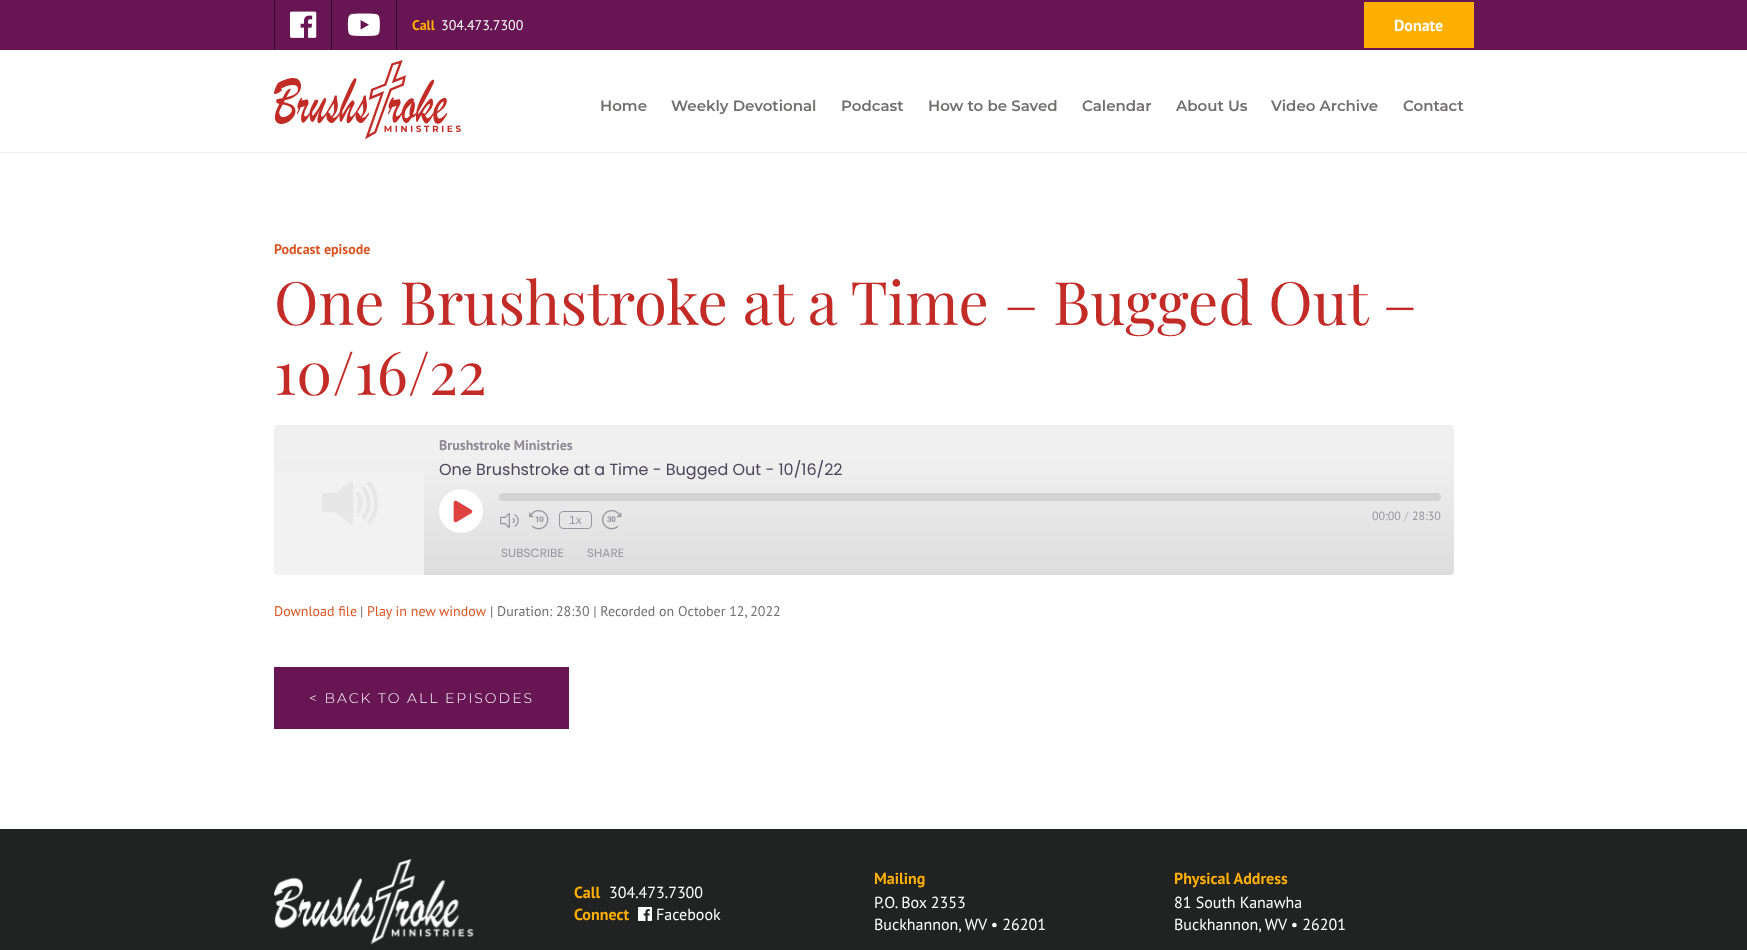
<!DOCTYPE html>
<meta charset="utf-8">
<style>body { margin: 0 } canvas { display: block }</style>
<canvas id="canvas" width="1747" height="950"></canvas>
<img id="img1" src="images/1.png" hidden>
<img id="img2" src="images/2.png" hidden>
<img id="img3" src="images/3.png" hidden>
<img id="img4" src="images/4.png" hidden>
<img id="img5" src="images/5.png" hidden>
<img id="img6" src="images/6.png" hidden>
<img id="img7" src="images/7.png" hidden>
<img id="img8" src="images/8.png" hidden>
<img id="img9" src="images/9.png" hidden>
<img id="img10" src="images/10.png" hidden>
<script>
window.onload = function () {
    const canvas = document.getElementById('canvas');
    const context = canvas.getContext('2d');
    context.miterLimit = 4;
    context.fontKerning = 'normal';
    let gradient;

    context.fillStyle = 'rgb(255, 255, 255)';
    context.fillRect(0, 0, 1747, 950);
    context.fillStyle = 'rgb(103, 21, 83)';
    context.fillRect(0, 0, 1747, 50);
    context.fillStyle = 'rgb(56, 11, 45)';
    context.fillRect(274, 0, 1, 50);
    context.drawImage(document.getElementById('img1'), 290, 11, 27, 27);
    context.fillRect(331, 0, 1, 50);
    context.drawImage(document.getElementById('img2'), 347, 13, 33, 23);
    context.fillRect(396, 0, 1, 50);
    context.fillStyle = 'rgb(255, 175, 2)';
    context.fillRect(1364, 2, 110, 46);
    context.fillStyle = 'rgb(238, 238, 238)';
    context.fillRect(0, 152, 1747, 1);
    context.drawImage(document.getElementById('img3'), 274, 60, 187, 80);
    gradient = context.createLinearGradient(864, 578, 864, 422);
    gradient.addColorStop(0.01, 'rgb(221, 221, 221)');
    gradient.addColorStop(0.78, 'rgb(240, 240, 240)');
    context.fillStyle = gradient;
    context.beginPath();
    context.roundRect(274, 425, 1180, 150, 4);
    context.fill();
    context.drawImage(document.getElementById('img4'), 274, 472, 150, 103);
    context.fillStyle = 'rgb(255, 255, 255)';
    context.beginPath();
    context.arc(461, 511, 22, 0, 2 * Math.PI);
    context.fill();
    context.drawImage(document.getElementById('img5'), 453, 500, 20, 23);
    context.fillStyle = 'rgb(211, 211, 211)';
    context.beginPath();
    context.roundRect(499, 493, 942, 8, 4);
    context.fill();
    context.drawImage(document.getElementById('img6'), 500, 513, 19, 15);
    context.drawImage(document.getElementById('img7'), 529, 510, 20, 20);
    context.beginPath();
    context.roundRect(559.5, 511.5, 32, 17, 3.5);
    context.strokeStyle = 'rgb(152, 150, 159)';
    context.stroke();
    context.drawImage(document.getElementById('img8'), 602, 510, 20, 20);
    context.fillStyle = 'rgb(103, 21, 83)';
    context.fillRect(274, 667, 295, 62);
    context.fillStyle = 'rgb(33, 34, 34)';
    context.fillRect(0, 829, 1747, 121);
    context.drawImage(document.getElementById('img9'), 274, 859, 200, 86);
    context.drawImage(document.getElementById('img10'), 638, 907, 14, 14);
    context.font = 'bold 14px PT Sans';
    context.fillStyle = 'rgb(255, 175, 2)';
    context.fillText('Call', 412, 30);
    context.font = '14px PT Sans';
    context.fillStyle = 'rgb(255, 255, 255)';
    context.fillText('304.473.7300', 441, 30);
    context.font = 'bold 16px PT Sans';
    context.fillText('Donate', 1394, 31);
    context.font = '600 15px Montserrat';
    context.fillStyle = 'rgb(113, 110, 110)';
    context.fillText('Home', 600, 111);
    context.fillText('Weekly Devotional', 671, 111);
    context.fillText('Podcast', 841, 111);
    context.fillText('How to be Saved', 928, 111);
    context.fillText('Calendar', 1082, 111);
    context.fillText('About Us', 1176, 111);
    context.fillText('Video Archive', 1271, 111);
    context.fillText('Contact', 1403, 111);
    context.font = 'bold 14px PT Sans';
    context.fillStyle = 'rgb(219, 85, 35)';
    context.fillText('Podcast episode', 274, 254);
    context.font = '60px Playfair Display';
    context.fillStyle = 'rgb(195, 43, 39)';
    context.fillText('One Brushstroke at a Time – Bugged Out –', 274, 325);
    context.fillText('10/16/22', 274, 395);
    context.font = 'bold 14px PT Sans';
    context.fillStyle = 'rgb(141, 138, 149)';
    context.fillText('Brushstroke Ministries', 439, 450);
    context.font = '16px Poppins';
    context.fillStyle = 'rgb(75, 70, 89)';
    context.fillText('One Brushstroke at a Time - Bugged Out - 10/16/22', 439, 475);
    context.font = '12px Liberation Sans';
    context.fillStyle = 'rgb(152, 150, 159)';
    context.fillText('1x', 569, 524);
    context.font = '12px PT Sans';
    context.fillText('00:00', 1372, 520);
    context.fillStyle = 'rgb(184, 182, 188)';
    context.fillText('/', 1404, 520);
    context.fillStyle = 'rgb(152, 150, 159)';
    context.fillText('28:30', 1412, 520);
    context.font = '12px Poppins';
    context.fillText('SUBSCRIBE', 501, 557);
    context.fillText('SHARE', 587, 557);
    context.font = '14px PT Sans';
    context.fillStyle = 'rgb(219, 85, 35)';
    context.fillText('Download file', 274, 616);
    context.fillStyle = 'rgb(113, 110, 110)';
    context.fillText('|', 360, 616);
    context.fillStyle = 'rgb(219, 85, 35)';
    context.fillText('Play in new window', 367, 616);
    context.fillStyle = 'rgb(113, 110, 110)';
    context.fillText('| Duration: 28:30 | Recorded on October 12, 2022', 490, 616);
    context.letterSpacing = '2px';
    context.font = '300 14px Montserrat';
    context.fillStyle = 'rgb(255, 255, 255)';
    context.fillText('< BACK TO ALL EPISODES', 309, 703);
    context.letterSpacing = '0px';
    context.font = 'bold 16px PT Sans';
    context.fillStyle = 'rgb(255, 175, 2)';
    context.fillText('Call', 574, 898);
    context.font = '16px PT Sans';
    context.fillStyle = 'rgb(255, 255, 255)';
    context.fillText('304.473.7300', 609, 898);
    context.font = 'bold 16px PT Sans';
    context.fillStyle = 'rgb(255, 175, 2)';
    context.fillText('Connect', 574, 920);
    context.font = '16px PT Sans';
    context.fillStyle = 'rgb(255, 255, 255)';
    context.fillText('Facebook', 656, 920);
    context.font = 'bold 16px PT Sans';
    context.fillStyle = 'rgb(255, 175, 2)';
    context.fillText('Mailing', 874, 884);
    context.font = '16px PT Sans';
    context.fillStyle = 'rgb(255, 255, 255)';
    context.fillText('P.O. Box 2353', 874, 908);
    context.fillText('Buckhannon, WV • 26201', 874, 930);
    context.font = 'bold 16px PT Sans';
    context.fillStyle = 'rgb(255, 175, 2)';
    context.fillText('Physical Address', 1174, 884);
    context.font = '16px PT Sans';
    context.fillStyle = 'rgb(255, 255, 255)';
    context.fillText('81 South Kanawha', 1174, 908);
    context.fillText('Buckhannon, WV • 26201', 1174, 930);
};
</script>
